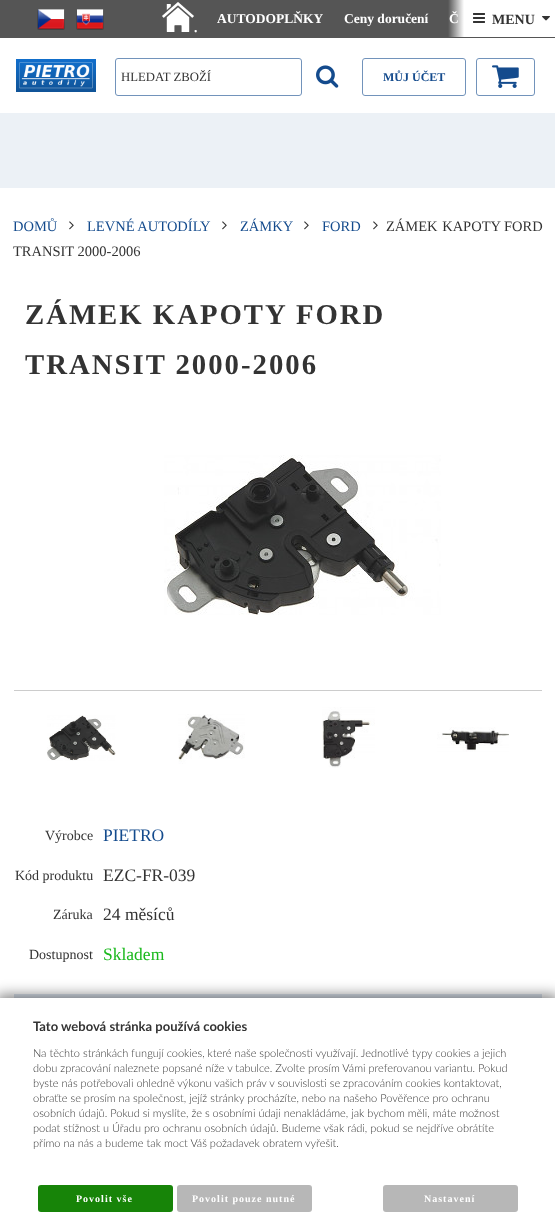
<!DOCTYPE html>
<meta charset="utf-8">
<style>body { margin: 0 } canvas { display: block }</style>
<canvas id="canvas" width="555" height="1228"></canvas>
<img id="img1" src="images/1.png" hidden>
<img id="img2" src="images/2.png" hidden>
<img id="img3" src="images/5.png" hidden>
<img id="img4" src="images/6.png" hidden>
<img id="img5" src="images/7.png" hidden>
<img id="img6" src="images/8.png" hidden>
<img id="img7" src="images/9.png" hidden>
<img id="img8" src="images/10.png" hidden>
<img id="img9" src="images/11.png" hidden>
<img id="img10" src="images/12.png" hidden>
<img id="img11" src="images/13.png" hidden>
<img id="img12" src="images/14.png" hidden>
<img id="img13" src="images/3.png" hidden>
<img id="img14" src="images/4.png" hidden>
<script>
window.onload = function () {
    const canvas = document.getElementById('canvas');
    const context = canvas.getContext('2d');
    context.miterLimit = 4;
    context.fontKerning = 'normal';
    let gradient;

    context.fillStyle = 'rgb(255, 255, 255)';
    context.fillRect(0, 0, 555, 1228);
    context.fillStyle = 'rgb(85, 85, 85)';
    context.fillRect(0, 0, 555, 38);
    context.drawImage(document.getElementById('img1'), 37, 9, 28, 21);
    context.drawImage(document.getElementById('img2'), 76, 9, 28, 21);
    context.drawImage(document.getElementById('img3'), 162, 2, 32, 30);
    context.drawImage(document.getElementById('img4'), 16, 59, 80, 33);
    context.beginPath();
    context.roundRect(115.5, 58.5, 186, 37, 2.5);
    context.strokeStyle = 'rgb(114, 147, 187)';
    context.stroke();
    context.drawImage(document.getElementById('img5'), 316, 65, 23, 23);
    context.beginPath();
    context.roundRect(362.5, 58.5, 103, 37, 2.5);
    context.stroke();
    context.beginPath();
    context.roundRect(476.5, 58.5, 58, 37, 2.5);
    context.stroke();
    context.drawImage(document.getElementById('img6'), 492, 65, 27, 23);
    context.fillStyle = 'rgb(236, 241, 246)';
    context.fillRect(0, 113, 555, 75);
    context.drawImage(document.getElementById('img7'), 69, 221, 5, 9);
    context.drawImage(document.getElementById('img7'), 222, 221, 5, 9);
    context.drawImage(document.getElementById('img7'), 304, 221, 5, 9);
    context.drawImage(document.getElementById('img7'), 373, 221, 5, 9);
    context.drawImage(document.getElementById('img8'), 164, 455, 277, 160);
    context.fillStyle = 'rgb(204, 204, 204)';
    context.fillRect(14, 690, 528, 1);
    context.drawImage(document.getElementById('img9'), 47, 715, 69, 46);
    context.drawImage(document.getElementById('img10'), 178, 714, 67, 50);
    context.drawImage(document.getElementById('img11'), 322, 707, 53, 61);
    context.drawImage(document.getElementById('img12'), 437, 727, 72, 25);
    context.fillStyle = 'rgb(220, 228, 238)';
    context.fillRect(14, 994, 528, 4);
    context.fillStyle = 'rgba(0, 0, 0, 0.5)';
    context.filter = 'blur(7px)';
    context.beginPath();
    context.rect(-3, 995, 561, 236);
    context.fill();
    context.filter = 'none';
    context.fillStyle = 'rgb(255, 255, 255)';
    context.fillRect(0, 998, 555, 230);
    context.fillStyle = 'rgb(23, 132, 8)';
    context.beginPath();
    context.roundRect(38, 1185, 135, 27, 3);
    context.fill();
    context.fillStyle = 'rgb(183, 183, 183)';
    context.beginPath();
    context.roundRect(177, 1185, 135, 27, 3);
    context.fill();
    context.beginPath();
    context.roundRect(383, 1185, 135, 27, 3);
    context.fill();
    context.font = 'bold 13.5px Liberation Serif';
    context.fillStyle = 'rgb(255, 255, 255)';
    context.fillText('AUTODOPLŇKY', 217, 23);
    context.fillText('Ceny doručení', 344, 23);
    context.fillText('Č', 449, 23);
    gradient = context.createLinearGradient(448, 18, 555, 18);
    gradient.addColorStop(0, 'rgba(255, 255, 255, 0)');
    gradient.addColorStop(0.15, 'rgb(255, 255, 255)');
    gradient.addColorStop(1, 'rgb(255, 255, 255)');
    context.fillStyle = gradient;
    context.fillRect(448, 0, 107, 37);
    context.drawImage(document.getElementById('img13'), 473, 13, 12, 10);
    context.font = 'bold 14px Liberation Serif';
    context.fillStyle = 'rgb(51, 51, 51)';
    context.fillText('MENU', 492, 24);
    context.drawImage(document.getElementById('img14'), 542, 16, 8, 5);
    context.font = 'bold 13.5px Liberation Serif';
    context.fillStyle = 'rgb(255, 255, 255)';
    context.fillText('.', 194, 32);
    context.font = '12.75px Liberation Serif';
    context.fillStyle = 'rgb(51, 51, 51)';
    context.fillText('HLEDAT ZBOŽÍ', 121, 81);
    context.font = 'bold 12px Liberation Serif';
    context.fillStyle = 'rgb(20, 75, 141)';
    context.fillText('MŮJ ÚČET', 383, 81);
    context.font = '14.5px Liberation Serif';
    context.fillText('DOMŮ', 13, 231);
    context.fillText('LEVNÉ AUTODÍLY', 87, 231);
    context.fillText('ZÁMKY', 240, 231);
    context.fillText('FORD', 322, 231);
    context.wordSpacing = '1px';
    context.fillStyle = 'rgb(51, 51, 51)';
    context.fillText('ZÁMEK KAPOTY', 386, 231);
    context.wordSpacing = '0px';
    context.fillText('FORD', 504, 231);
    context.save();
    context.beginPath();
    context.rect(13, 213, 530, 51);
    context.clip();
    context.fillText('TRANSIT 2000-2006', 13, 256);
    context.restore();
    context.letterSpacing = '2px';
    context.font = 'bold 28.75px Liberation Serif';
    context.fillText('ZÁMEK KAPOTY FORD', 25, 324);
    context.fillText('TRANSIT 2000-2006', 25, 374);
    context.letterSpacing = '0px';
    context.font = '14px Liberation Serif';
    context.fillText('Výrobce', 45, 840);
    context.font = '17.5px Liberation Serif';
    context.fillStyle = 'rgb(20, 75, 141)';
    context.fillText('PIETRO', 103, 841);
    context.font = '14px Liberation Serif';
    context.fillStyle = 'rgb(51, 51, 51)';
    context.fillText('Kód produktu', 15, 880);
    context.font = '17.5px Liberation Serif';
    context.fillText('EZC-FR-039', 103, 881);
    context.font = '14px Liberation Serif';
    context.fillText('Záruka', 53, 919);
    context.font = '17.5px Liberation Serif';
    context.fillText('24 měsíců', 103, 920);
    context.font = '14px Liberation Serif';
    context.fillText('Dostupnost', 29, 959);
    context.font = '17.5px Liberation Serif';
    context.fillStyle = 'rgb(25, 184, 27)';
    context.fillText('Skladem', 103, 960);
    context.font = 'bold 13px Lato';
    context.fillStyle = 'rgb(51, 51, 51)';
    context.fillText('Tato webová stránka používá cookies', 33, 1031);
    context.font = '300 11px Lato';
    context.fillText('Na těchto stránkách fungují cookies, které naše společnosti využívají. Jednotlivé typy cookies a jejich', 33, 1057);
    context.fillText('dobu zpracování naleznete popsané níže v tabulce. Zvolte prosím Vámi preferovanou variantu. Pokud', 33, 1072);
    context.fillText('byste nás potřebovali ohledně výkonu vašich práv v souvislosti se zpracováním cookies kontaktovat,', 33, 1087);
    context.fillText('obraťte se prosím na společnost, jejíž stránky procházíte, nebo na našeho Pověřence pro ochranu', 33, 1102);
    context.fillText('osobních údajů. Pokud si myslíte, že s osobními údaji nenakládáme, jak bychom měli, máte možnost', 33, 1117);
    context.fillText('podat stížnost u Úřadu pro ochranu osobních údajů. Budeme však rádi, pokud se nejdříve obrátíte', 33, 1132);
    context.fillText('přímo na nás a budeme tak moct Váš požadavek obratem vyřešit.', 33, 1147);
    context.letterSpacing = '1px';
    context.font = 'bold 10px Liberation Serif';
    context.fillStyle = 'rgb(255, 255, 255)';
    context.fillText('Povolit vše', 76, 1202);
    context.fillText('Povolit pouze nutné', 192, 1202);
    context.fillText('Nastavení', 424, 1202);
};
</script>
